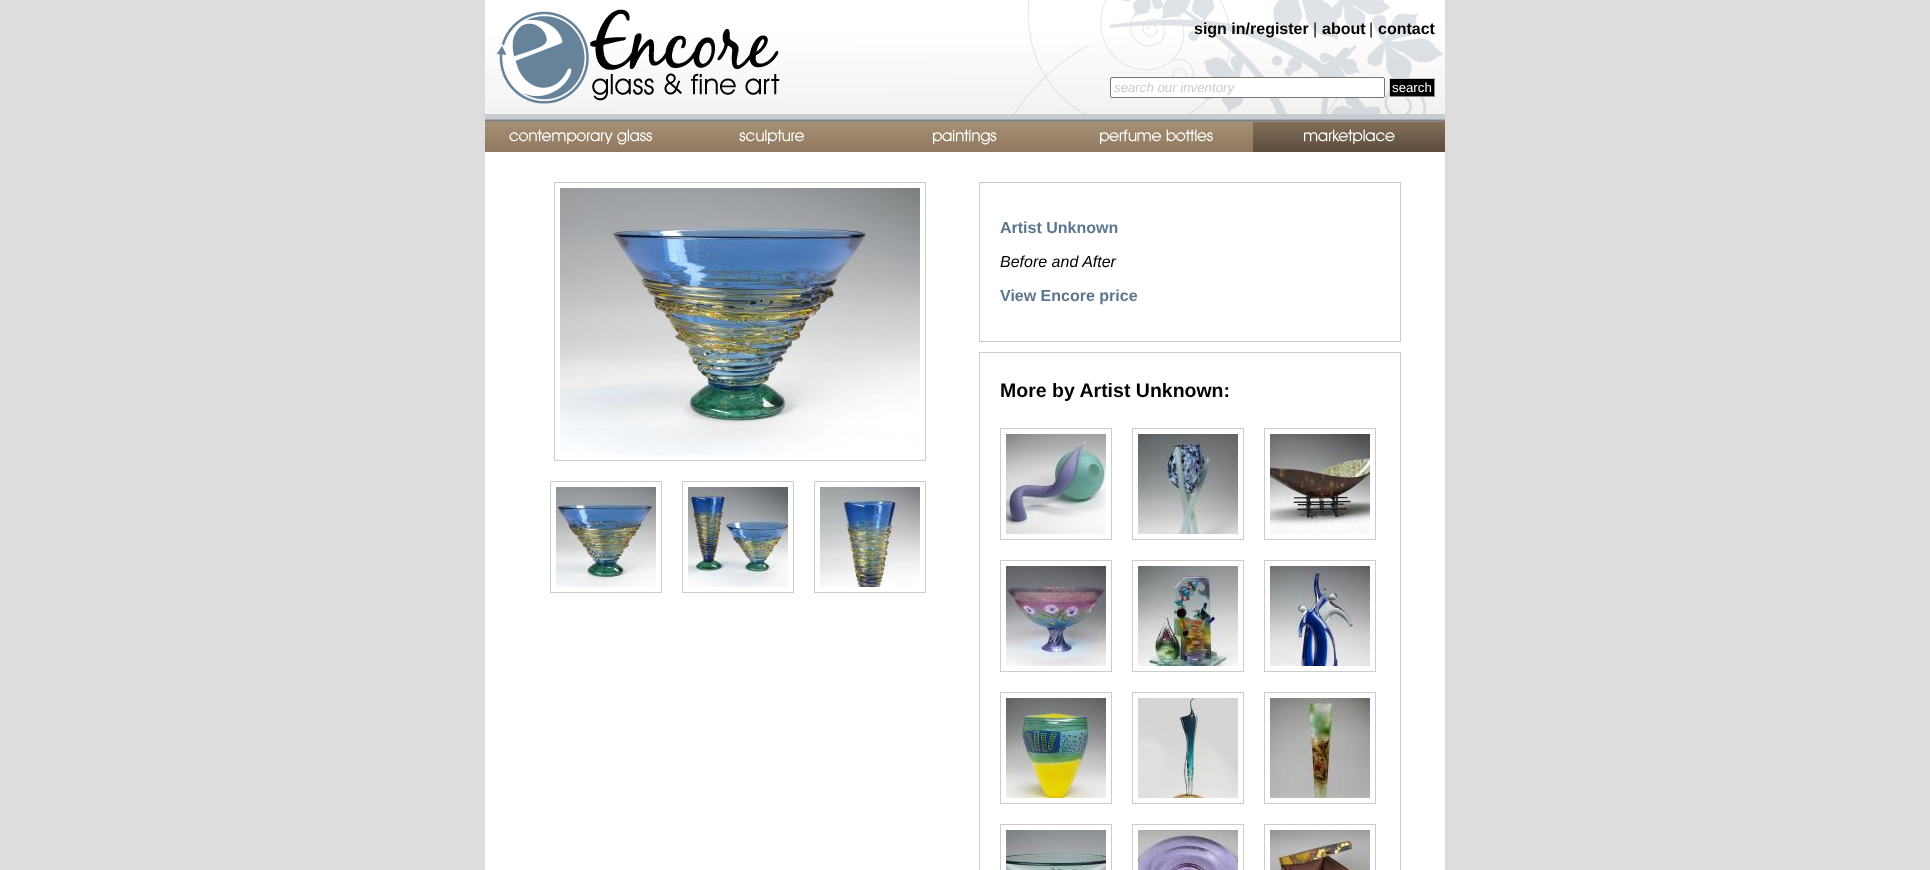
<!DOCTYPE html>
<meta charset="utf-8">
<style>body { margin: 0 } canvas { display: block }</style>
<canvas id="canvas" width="1930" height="870"></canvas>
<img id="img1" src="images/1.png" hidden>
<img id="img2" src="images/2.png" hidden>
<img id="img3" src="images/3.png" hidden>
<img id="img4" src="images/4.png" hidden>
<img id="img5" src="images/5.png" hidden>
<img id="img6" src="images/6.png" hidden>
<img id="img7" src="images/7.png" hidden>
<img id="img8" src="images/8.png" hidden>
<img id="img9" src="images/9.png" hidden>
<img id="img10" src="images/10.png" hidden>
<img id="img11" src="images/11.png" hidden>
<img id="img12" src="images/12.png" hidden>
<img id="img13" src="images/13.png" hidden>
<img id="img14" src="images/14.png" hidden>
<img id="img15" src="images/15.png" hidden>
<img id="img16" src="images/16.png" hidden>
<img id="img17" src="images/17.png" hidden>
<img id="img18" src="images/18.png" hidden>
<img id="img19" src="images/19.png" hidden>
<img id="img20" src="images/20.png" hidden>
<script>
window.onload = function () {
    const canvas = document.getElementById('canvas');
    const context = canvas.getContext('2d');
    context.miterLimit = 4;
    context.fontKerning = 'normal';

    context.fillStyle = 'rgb(221, 221, 221)';
    context.fillRect(0, 0, 1930, 870);
    context.fillStyle = 'rgb(255, 255, 255)';
    context.fillRect(485, 152, 960, 718);
    context.drawImage(document.getElementById('img1'), 485, 0, 960, 114);
    context.drawImage(document.getElementById('img2'), 496, 9, 284, 95);
    context.beginPath();
    context.roundRect(1110.5, 77.5, 274, 20, 1.5);
    context.fill();
    context.strokeStyle = 'rgb(118, 118, 118)';
    context.stroke();
    context.fillStyle = 'rgb(0, 0, 0)';
    context.fillRect(1390, 79, 44, 17);
    context.fillStyle = 'rgb(204, 204, 204)';
    context.fillRect(1389, 78, 46, 1);
    context.fillStyle = 'rgb(136, 136, 136)';
    context.fillRect(1434, 78, 1, 19);
    context.fillRect(1389, 96, 46, 1);
    context.fillStyle = 'rgb(204, 204, 204)';
    context.fillRect(1389, 78, 1, 19);
    context.drawImage(document.getElementById('img3'), 485, 114, 960, 38);
    context.drawImage(document.getElementById('img4'), 1253, 122, 192, 30);
    context.strokeStyle = 'rgb(204, 204, 204)';
    context.strokeRect(554.5, 182.5, 371, 278);
    context.drawImage(document.getElementById('img5'), 560, 188, 360, 267);
    context.strokeRect(550.5, 481.5, 111, 111);
    context.drawImage(document.getElementById('img6'), 556, 487, 100, 100);
    context.strokeRect(682.5, 481.5, 111, 111);
    context.drawImage(document.getElementById('img7'), 688, 487, 100, 100);
    context.strokeRect(814.5, 481.5, 111, 111);
    context.drawImage(document.getElementById('img8'), 820, 487, 100, 100);
    context.strokeRect(979.5, 182.5, 421, 159);
    context.strokeRect(979.5, 352.5, 421, 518);
    context.strokeRect(1000.5, 428.5, 111, 111);
    context.drawImage(document.getElementById('img9'), 1006, 434, 100, 100);
    context.strokeRect(1132.5, 428.5, 111, 111);
    context.drawImage(document.getElementById('img10'), 1138, 434, 100, 100);
    context.strokeRect(1264.5, 428.5, 111, 111);
    context.drawImage(document.getElementById('img11'), 1270, 434, 100, 100);
    context.strokeRect(1000.5, 560.5, 111, 111);
    context.drawImage(document.getElementById('img12'), 1006, 566, 100, 100);
    context.strokeRect(1132.5, 560.5, 111, 111);
    context.drawImage(document.getElementById('img13'), 1138, 566, 100, 100);
    context.strokeRect(1264.5, 560.5, 111, 111);
    context.drawImage(document.getElementById('img14'), 1270, 566, 100, 100);
    context.strokeRect(1000.5, 692.5, 111, 111);
    context.drawImage(document.getElementById('img15'), 1006, 698, 100, 100);
    context.strokeRect(1132.5, 692.5, 111, 111);
    context.drawImage(document.getElementById('img16'), 1138, 698, 100, 100);
    context.strokeRect(1264.5, 692.5, 111, 111);
    context.drawImage(document.getElementById('img17'), 1270, 698, 100, 100);
    context.strokeRect(1000.5, 824.5, 111, 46);
    context.drawImage(document.getElementById('img18'), 1006, 830, 100, 40);
    context.strokeRect(1132.5, 824.5, 111, 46);
    context.drawImage(document.getElementById('img19'), 1138, 830, 100, 40);
    context.strokeRect(1264.5, 824.5, 111, 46);
    context.drawImage(document.getElementById('img20'), 1270, 830, 100, 40);
    context.font = 'bold 16px Liberation Sans';
    context.fillStyle = 'rgb(0, 0, 0)';
    context.fillText('sign in/register', 1194, 34);
    context.font = '16px Liberation Sans';
    context.fillText('|', 1313, 34);
    context.font = 'bold 16px Liberation Sans';
    context.fillText('about', 1322, 34);
    context.font = '16px Liberation Sans';
    context.fillText('|', 1369, 34);
    context.font = 'bold 16px Liberation Sans';
    context.fillText('contact', 1378, 34);
    context.font = 'italic 13.25px Liberation Sans';
    context.fillStyle = 'rgb(204, 204, 204)';
    context.fillText('search our inventory', 1114, 92);
    context.font = '13.25px Liberation Sans';
    context.fillStyle = 'rgb(255, 255, 255)';
    context.fillText('search', 1392, 92);
    context.font = 'bold 16px Liberation Sans';
    context.fillStyle = 'rgb(93, 117, 141)';
    context.fillText('Artist Unknown', 1000, 233);
    context.font = 'italic 16px Liberation Sans';
    context.fillStyle = 'rgb(0, 0, 0)';
    context.fillText('Before and After', 1000, 267);
    context.font = 'bold 16px Liberation Sans';
    context.fillStyle = 'rgb(93, 117, 141)';
    context.fillText('View Encore price', 1000, 301);
    context.font = 'bold 19.5px Liberation Sans';
    context.fillStyle = 'rgb(0, 0, 0)';
    context.fillText('More by Artist Unknown:', 1000, 397);
};
</script>
